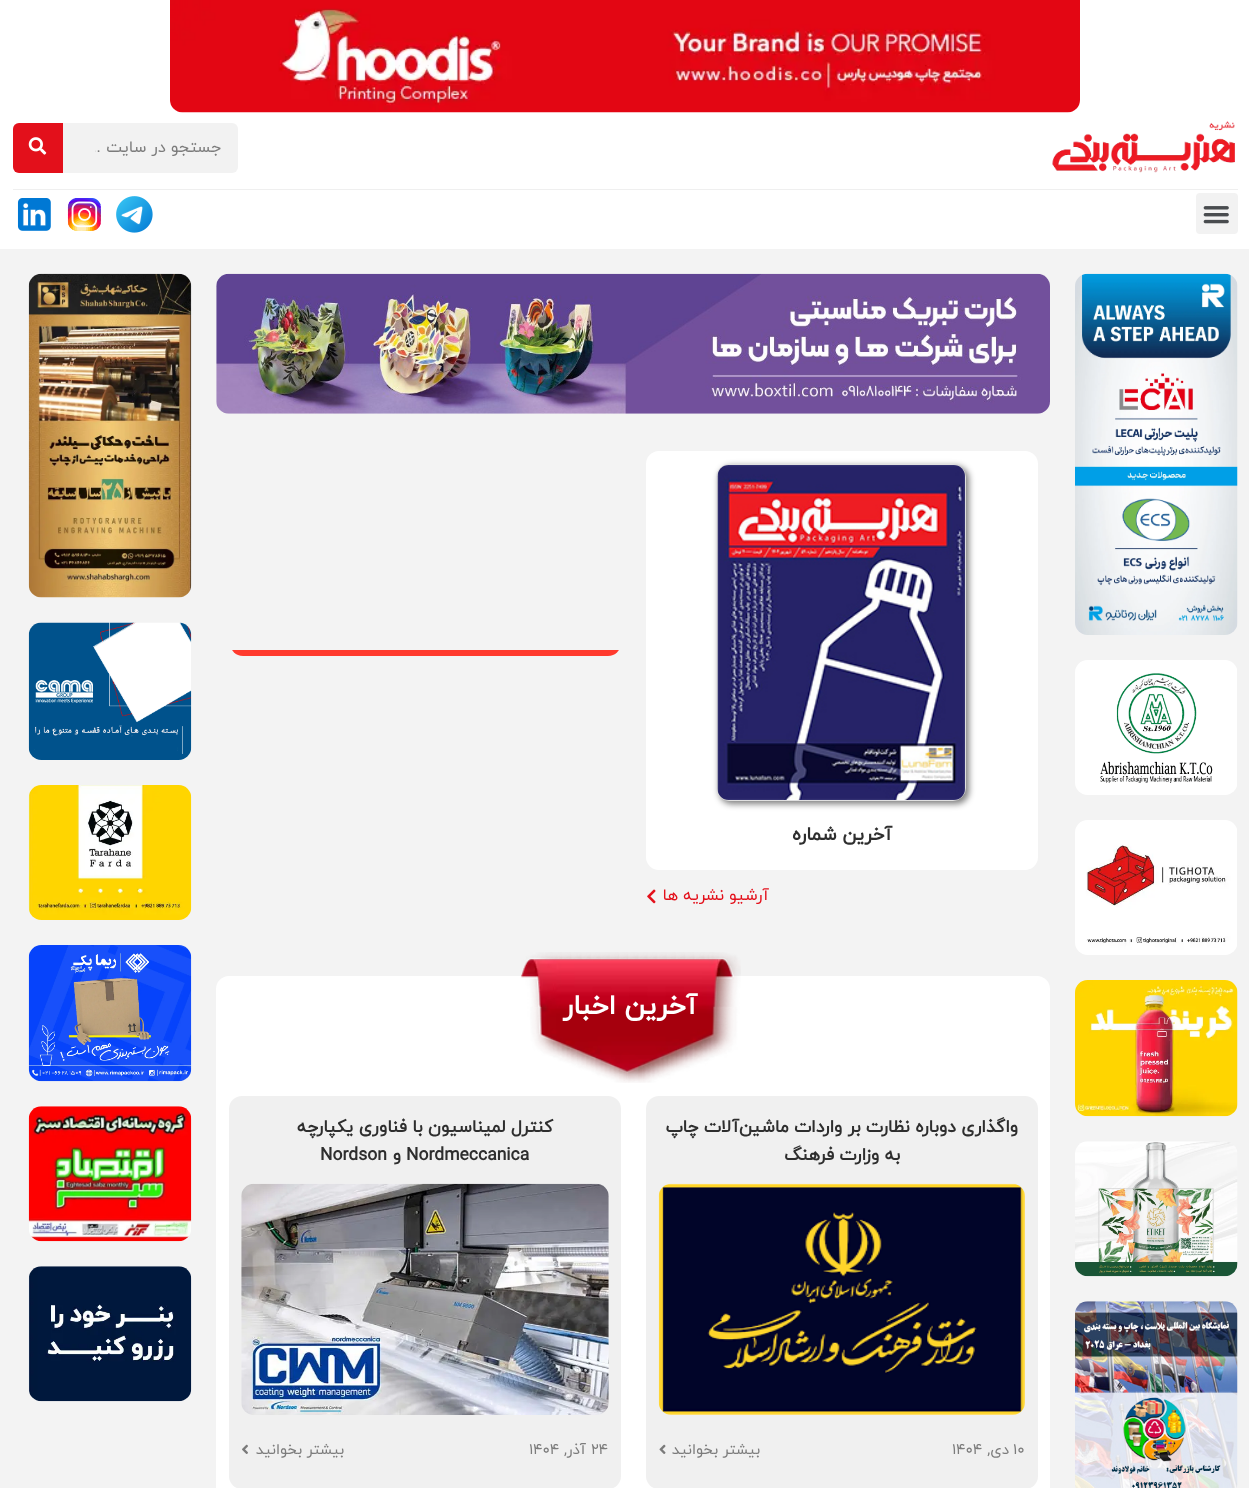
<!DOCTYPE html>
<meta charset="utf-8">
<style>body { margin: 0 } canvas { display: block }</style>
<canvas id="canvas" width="1249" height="1488"></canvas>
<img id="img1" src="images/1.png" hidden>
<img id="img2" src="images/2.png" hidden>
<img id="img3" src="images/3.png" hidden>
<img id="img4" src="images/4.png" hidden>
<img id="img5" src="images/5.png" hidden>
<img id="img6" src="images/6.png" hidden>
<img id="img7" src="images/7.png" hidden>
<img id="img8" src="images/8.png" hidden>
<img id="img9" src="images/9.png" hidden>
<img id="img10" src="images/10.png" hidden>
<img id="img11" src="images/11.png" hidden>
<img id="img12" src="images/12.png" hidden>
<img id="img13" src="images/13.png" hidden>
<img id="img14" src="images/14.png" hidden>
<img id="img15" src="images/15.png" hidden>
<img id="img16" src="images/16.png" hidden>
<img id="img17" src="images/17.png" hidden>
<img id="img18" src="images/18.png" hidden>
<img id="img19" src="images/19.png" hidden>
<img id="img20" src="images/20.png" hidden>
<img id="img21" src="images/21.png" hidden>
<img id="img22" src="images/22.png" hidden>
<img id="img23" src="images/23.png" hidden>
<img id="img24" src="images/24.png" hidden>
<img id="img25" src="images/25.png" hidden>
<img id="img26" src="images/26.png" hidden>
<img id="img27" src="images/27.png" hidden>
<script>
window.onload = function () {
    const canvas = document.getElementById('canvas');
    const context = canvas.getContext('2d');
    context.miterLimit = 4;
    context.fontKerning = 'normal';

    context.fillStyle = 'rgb(243, 243, 243)';
    context.fillRect(0, 0, 1249, 1488);
    context.fillStyle = 'rgb(255, 255, 255)';
    context.fillRect(0, 0, 1249, 249);
    context.drawImage(document.getElementById('img1'), 170, 0, 910, 113);
    context.drawImage(document.getElementById('img2'), 1052, 121, 183, 52);
    context.fillStyle = 'rgb(242, 242, 242)';
    context.beginPath();
    context.roundRect(13, 123, 225, 50, 6);
    context.fill();
    context.fillStyle = 'rgb(227, 16, 27)';
    context.beginPath();
    context.roundRect(13, 123, 50, 50, [6, 0, 0, 6]);
    context.fill();
    context.drawImage(document.getElementById('img3'), 28, 137, 19, 18);
    context.fillStyle = 'rgb(239, 239, 239)';
    context.fillRect(13, 189, 1225, 1);
    context.fillStyle = 'rgb(242, 242, 242)';
    context.beginPath();
    context.roundRect(1196, 193, 42, 41, 4);
    context.fill();
    context.drawImage(document.getElementById('img4'), 1203, 206, 26, 18);
    context.drawImage(document.getElementById('img5'), 116, 196, 37, 37);
    context.drawImage(document.getElementById('img6'), 67, 198, 34, 33);
    context.drawImage(document.getElementById('img7'), 17, 198, 34, 33);
    context.drawImage(document.getElementById('img8'), 1075, 273, 163, 362);
    context.drawImage(document.getElementById('img9'), 1075, 660, 162, 135);
    context.drawImage(document.getElementById('img10'), 1075, 820, 162, 135);
    context.drawImage(document.getElementById('img11'), 1075, 980, 163, 137);
    context.drawImage(document.getElementById('img12'), 1075, 1141, 163, 136);
    context.drawImage(document.getElementById('img13'), 1075, 1301, 163, 187);
    context.drawImage(document.getElementById('img14'), 216, 273, 834, 141);
    context.save();
    context.beginPath();
    context.roundRect(230, 451, 391, 205, 13);
    context.clip();
    context.fillStyle = 'rgb(255, 58, 45)';
    context.fillRect(230, 650, 391, 6);
    context.restore();
    context.fillStyle = 'rgb(255, 255, 255)';
    context.beginPath();
    context.roundRect(646, 451, 392, 419, 13);
    context.fill();
    context.fillStyle = 'rgba(0, 0, 0, 0.5)';
    context.filter = 'blur(3px)';
    context.beginPath();
    context.roundRect(719, 466, 250, 338, 13);
    context.fill();
    context.filter = 'none';
    context.beginPath();
    context.roundRect(716.5, 464.5, 249, 336, 12.5);
    context.strokeStyle = 'rgb(224, 224, 224)';
    context.stroke();
    context.drawImage(document.getElementById('img15'), 717, 465, 248, 335);
    context.drawImage(document.getElementById('img16'), 647, 889, 9, 15);
    context.fillStyle = 'rgb(255, 255, 255)';
    context.beginPath();
    context.roundRect(216, 976, 834, 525, 13);
    context.fill();
    context.drawImage(document.getElementById('img17'), 521, 952, 220, 131);
    context.fillStyle = 'rgb(240, 240, 240)';
    context.beginPath();
    context.roundRect(646, 1096, 392, 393, 13);
    context.fill();
    context.drawImage(document.getElementById('img18'), 658, 1183, 367, 232);
    context.drawImage(document.getElementById('img19'), 659, 1444, 7, 10);
    context.beginPath();
    context.roundRect(229, 1096, 392, 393, 13);
    context.fill();
    context.drawImage(document.getElementById('img20'), 241, 1183, 368, 232);
    context.drawImage(document.getElementById('img21'), 242, 1444, 6, 10);
    context.drawImage(document.getElementById('img22'), 28, 273, 164, 325);
    context.drawImage(document.getElementById('img23'), 28, 622, 164, 138);
    context.drawImage(document.getElementById('img24'), 28, 785, 164, 135);
    context.drawImage(document.getElementById('img25'), 28, 945, 164, 137);
    context.drawImage(document.getElementById('img26'), 28, 1106, 164, 136);
    context.drawImage(document.getElementById('img27'), 28, 1266, 164, 136);
    context.save();
    context.beginPath();
    context.rect(95, 136, 126, 23);
    context.clip();
    context.direction = 'rtl';
    context.font = '16.25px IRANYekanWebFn';
    context.fillStyle = 'rgb(124, 124, 124)';
    context.fillText('جستجو در سایت ...', 221, 152);
    context.restore();
    context.direction = 'rtl';
    context.font = 'bold 18.75px IRANYekanWebFn';
    context.fillStyle = 'rgb(46, 46, 46)';
    context.fillText('آخرین شماره', 892, 840);
    context.font = '16.25px IRANYekanWebFn';
    context.fillStyle = 'rgb(227, 16, 27)';
    context.fillText('آرشیو نشریه ها', 769, 900);
    context.font = 'bold 27.5px IRANYekanWebFn';
    context.fillStyle = 'rgb(255, 255, 255)';
    context.fillText('آخرین اخبار', 697, 1014);
    context.font = 'bold 17.5px IRANYekanWebFn';
    context.fillStyle = 'rgb(46, 46, 46)';
    context.fillText('واگذاری دوباره نظارت بر واردات ماشین‌آلات چاپ', 1018, 1132);
    context.fillText('به وزارت فرهنگ', 900, 1160);
    context.direction = 'ltr';
    context.font = '15px IRANYekanWebFn';
    context.fillStyle = 'rgb(124, 124, 124)';
    context.fillText('10', 1013, 1454);
    context.direction = 'rtl';
    context.fillText('دی,', 1009, 1454);
    context.direction = 'ltr';
    context.fillText('1404', 952, 1454);
    context.direction = 'rtl';
    context.fillText('بیشتر بخوانید', 760, 1454);
    context.font = 'bold 17.5px IRANYekanWebFn';
    context.fillStyle = 'rgb(46, 46, 46)';
    context.fillText('کنترل لمیناسیون با فناوری یکپارچه', 553, 1132);
    context.direction = 'ltr';
    context.fillText('Nordmeccanica', 406, 1160);
    context.direction = 'rtl';
    context.fillText('و', 401, 1160);
    context.direction = 'ltr';
    context.fillText('Nordson', 320, 1160);
    context.font = '15px IRANYekanWebFn';
    context.fillStyle = 'rgb(124, 124, 124)';
    context.fillText('24', 591, 1454);
    context.direction = 'rtl';
    context.fillText('آذر,', 586, 1454);
    context.direction = 'ltr';
    context.fillText('1404', 529, 1454);
    context.direction = 'rtl';
    context.fillText('بیشتر بخوانید', 344, 1454);
};
</script>
